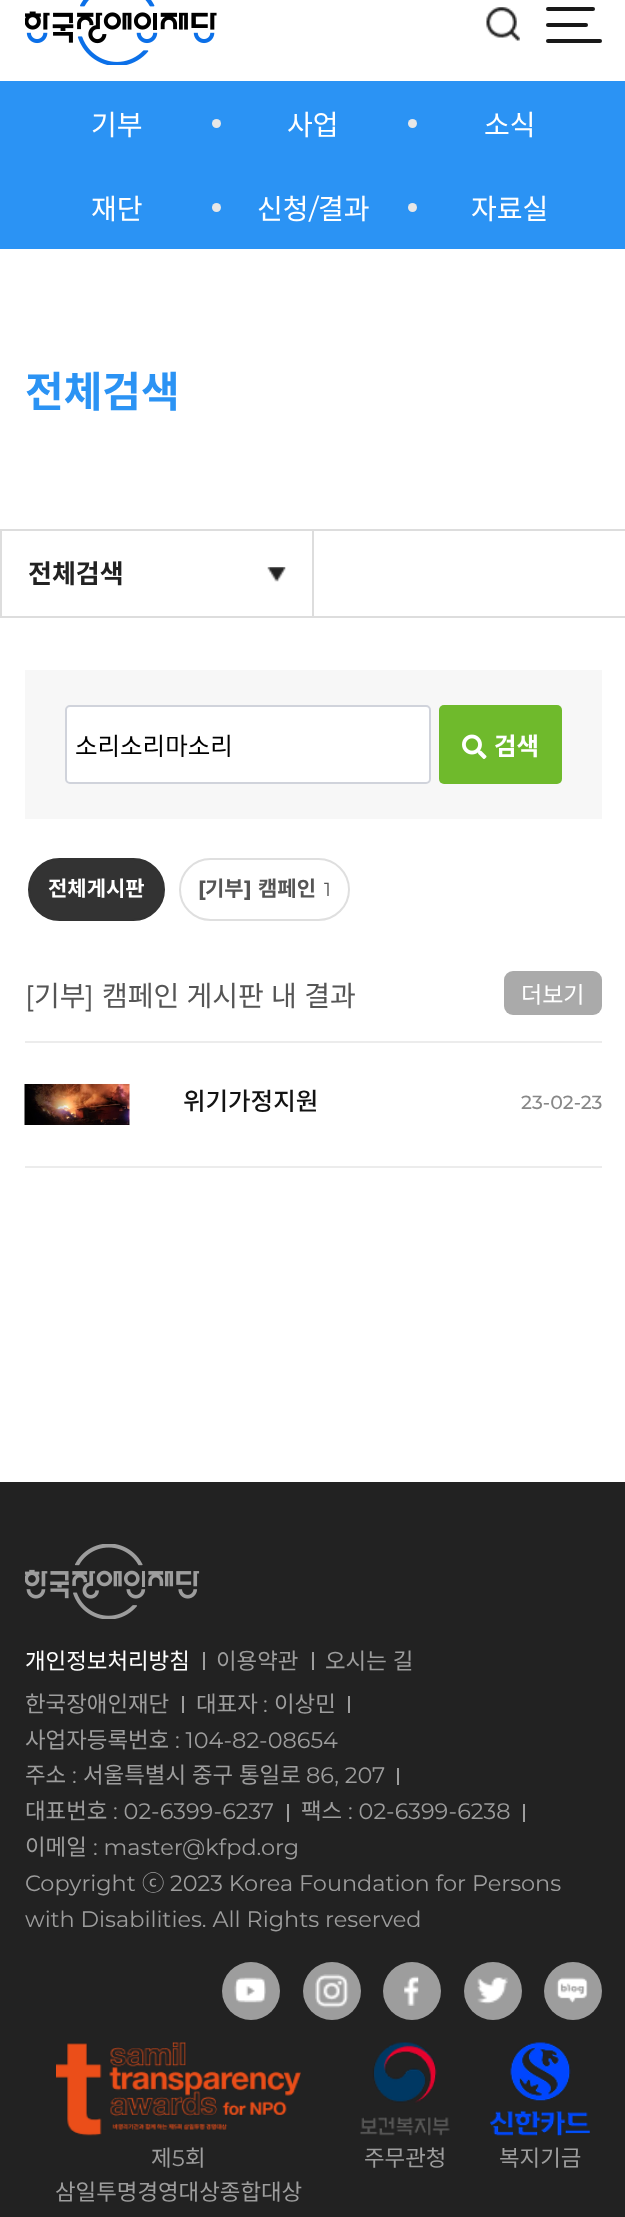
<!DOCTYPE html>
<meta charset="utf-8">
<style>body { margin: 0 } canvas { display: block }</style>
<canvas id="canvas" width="625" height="2217"></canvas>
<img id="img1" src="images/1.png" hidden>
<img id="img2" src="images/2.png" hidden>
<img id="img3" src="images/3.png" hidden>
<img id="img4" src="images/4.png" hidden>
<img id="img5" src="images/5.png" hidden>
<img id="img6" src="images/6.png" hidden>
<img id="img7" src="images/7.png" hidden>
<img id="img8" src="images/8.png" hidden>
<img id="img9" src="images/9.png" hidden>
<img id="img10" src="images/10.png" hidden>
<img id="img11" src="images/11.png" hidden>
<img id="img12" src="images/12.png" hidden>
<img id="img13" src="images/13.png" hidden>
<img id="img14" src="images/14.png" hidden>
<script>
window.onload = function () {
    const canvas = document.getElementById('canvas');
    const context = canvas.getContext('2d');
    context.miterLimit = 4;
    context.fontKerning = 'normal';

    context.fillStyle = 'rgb(255, 255, 255)';
    context.fillRect(0, 0, 625, 2217);
    context.drawImage(document.getElementById('img1'), 25, 0, 192, 65);
    context.drawImage(document.getElementById('img2'), 486, 7, 34, 34);
    context.fillStyle = 'rgb(24, 24, 24)';
    context.beginPath();
    context.roundRect(546, 7, 49, 4, 2);
    context.fill();
    context.beginPath();
    context.roundRect(546, 23, 42, 4, 2);
    context.fill();
    context.beginPath();
    context.roundRect(546, 39, 56, 4, 2);
    context.fill();
    context.fillStyle = 'rgb(43, 147, 244)';
    context.fillRect(0, 81, 625, 168);
    context.fillStyle = 'rgb(231, 231, 231)';
    context.beginPath();
    context.arc(216.5, 123.5, 4.5, 0, 2 * Math.PI);
    context.fill();
    context.beginPath();
    context.arc(412.5, 123.5, 4.5, 0, 2 * Math.PI);
    context.fill();
    context.beginPath();
    context.arc(216.5, 207.5, 4.5, 0, 2 * Math.PI);
    context.fill();
    context.beginPath();
    context.arc(412.5, 207.5, 4.5, 0, 2 * Math.PI);
    context.fill();
    context.fillStyle = 'rgb(221, 221, 221)';
    context.fillRect(0, 529, 625, 2);
    context.fillRect(0, 616, 625, 2);
    context.fillRect(312, 530, 2, 86);
    context.fillRect(0, 530, 2, 86);
    context.drawImage(document.getElementById('img3'), 267, 567, 19, 15);
    context.fillStyle = 'rgb(247, 247, 247)';
    context.fillRect(25, 670, 577, 149);
    context.fillStyle = 'rgb(255, 255, 255)';
    context.beginPath();
    context.roundRect(66, 706, 364, 77, 4);
    context.fill();
    context.strokeStyle = 'rgb(208, 211, 219)';
    context.lineWidth = 2;
    context.stroke();
    context.fillStyle = 'rgb(111, 186, 44)';
    context.beginPath();
    context.roundRect(439, 705, 123, 79, 5);
    context.fill();
    context.drawImage(document.getElementById('img4'), 462, 734, 25, 25);
    context.fillStyle = 'rgb(51, 51, 51)';
    context.beginPath();
    context.roundRect(29, 859, 135, 61, 30.5);
    context.fill();
    context.strokeStyle = 'rgb(51, 51, 51)';
    context.stroke();
    context.beginPath();
    context.roundRect(180, 859, 169, 61, 30.5);
    context.strokeStyle = 'rgb(223, 223, 223)';
    context.stroke();
    context.fillStyle = 'rgb(170, 170, 170)';
    context.beginPath();
    context.roundRect(504, 971, 98, 44, 9);
    context.fill();
    context.fillStyle = 'rgb(236, 236, 236)';
    context.fillRect(25, 1041, 577, 2);
    context.fillRect(25, 1166, 577, 2);
    context.drawImage(document.getElementById('img5'), 24, 1083, 106, 42);
    context.fillStyle = 'rgb(34, 34, 34)';
    context.fillRect(0, 1482, 625, 735);
    context.drawImage(document.getElementById('img6'), 25, 1544, 175, 75);
    context.fillStyle = 'rgb(157, 157, 157)';
    context.fillRect(203, 1652, 2, 18);
    context.fillRect(312, 1652, 2, 18);
    context.fillRect(182, 1696, 2, 17);
    context.fillRect(348, 1696, 2, 17);
    context.fillRect(397, 1768, 2, 17);
    context.fillRect(287, 1804, 2, 18);
    context.fillRect(523, 1804, 2, 18);
    context.beginPath();
    context.arc(251, 1991, 29, 0, 2 * Math.PI);
    context.fill();
    context.drawImage(document.getElementById('img7'), 234, 1977, 32, 26);
    context.beginPath();
    context.arc(332, 1991, 29, 0, 2 * Math.PI);
    context.fill();
    context.drawImage(document.getElementById('img8'), 315, 1974, 34, 34);
    context.beginPath();
    context.arc(412, 1991, 29, 0, 2 * Math.PI);
    context.fill();
    context.drawImage(document.getElementById('img9'), 404, 1976, 15, 30);
    context.beginPath();
    context.arc(493, 1991, 29, 0, 2 * Math.PI);
    context.fill();
    context.drawImage(document.getElementById('img10'), 477, 1977, 32, 27);
    context.beginPath();
    context.arc(573, 1991, 29, 0, 2 * Math.PI);
    context.fill();
    context.drawImage(document.getElementById('img11'), 556, 1977, 32, 26);
    context.drawImage(document.getElementById('img12'), 56, 2042, 245, 94);
    context.drawImage(document.getElementById('img13'), 360, 2042, 90, 94);
    context.drawImage(document.getElementById('img14'), 490, 2042, 100, 94);
    context.font = '28px Noto Sans KR';
    context.fillStyle = 'rgb(255, 255, 255)';
    context.fillText('기부', 91, 135);
    context.fillText('사업', 287, 135);
    context.fillText('소식', 484, 135);
    context.fillText('재단', 91, 219);
    context.fillText('신청', 257, 219);
    context.font = '28px Montserrat';
    context.fillText('/', 309, 219);
    context.font = '28px Noto Sans KR';
    context.fillText('결과', 318, 219);
    context.fillText('자료실', 471, 219);
    context.font = 'bold 42px Noto Sans KR';
    context.fillStyle = 'rgb(43, 147, 244)';
    context.fillText('전체검색', 25, 407);
    context.font = 'bold 26px Noto Sans KR';
    context.fillStyle = 'rgb(34, 34, 34)';
    context.fillText('전체검색', 28, 583);
    context.font = '24.5px Noto Sans KR';
    context.fillStyle = 'rgb(0, 0, 0)';
    context.fillText('소리소리마소리', 75, 755);
    context.font = 'bold 24.5px Noto Sans KR';
    context.fillStyle = 'rgb(255, 255, 255)';
    context.fillText('검색', 494, 755);
    context.font = 'bold 21px Noto Sans KR';
    context.fillText('전체게시판', 48, 896);
    context.font = 'bold 21px Montserrat';
    context.fillStyle = 'rgb(85, 85, 85)';
    context.fillText('[', 198, 896);
    context.font = 'bold 21px Noto Sans KR';
    context.fillText('기부', 205, 896);
    context.font = 'bold 21px Montserrat';
    context.fillText(']', 244, 896);
    context.font = 'bold 21px Noto Sans KR';
    context.fillText('캠페인', 258, 896);
    context.font = '19px Montserrat';
    context.fillText('1', 324, 896);
    context.font = '28px Montserrat';
    context.fillText('[', 25, 1006);
    context.font = '28px Noto Sans KR';
    context.fillText('기부', 34, 1006);
    context.font = '28px Montserrat';
    context.fillText(']', 85, 1006);
    context.wordSpacing = '1px';
    context.font = '28px Noto Sans KR';
    context.fillText('캠페인 게시판 내 결과', 102, 1006);
    context.wordSpacing = '0px';
    context.font = '23px Noto Sans KR';
    context.fillStyle = 'rgb(255, 255, 255)';
    context.fillText('더보기', 521, 1003);
    context.font = '500 24.5px Noto Sans KR';
    context.fillStyle = 'rgb(19, 19, 19)';
    context.fillText('위기가정지원', 183, 1110);
    context.font = '500 19px Montserrat';
    context.fillStyle = 'rgb(136, 136, 136)';
    context.fillText('23-02-23', 521, 1109);
    context.font = '22.4px Noto Sans KR';
    context.fillStyle = 'rgb(255, 255, 255)';
    context.fillText('개인정보처리방침', 25, 1669);
    context.fillStyle = 'rgb(157, 157, 157)';
    context.fillText('이용약관', 216, 1669);
    context.wordSpacing = '1px';
    context.fillText('오시는 길', 325, 1669);
    context.wordSpacing = '0px';
    context.fillText('한국장애인재단', 25, 1712);
    context.fillText('대표자', 196, 1712);
    context.font = '22.4px Montserrat';
    context.fillText(':', 263, 1712);
    context.font = '22.4px Noto Sans KR';
    context.fillText('이상민', 274, 1712);
    context.fillText('사업자등록번호', 25, 1748);
    context.font = '22.4px Montserrat';
    context.fillText(': 104-82-08654', 175, 1748);
    context.font = '22.4px Noto Sans KR';
    context.fillText('주소', 25, 1783);
    context.font = '22.4px Montserrat';
    context.fillText(':', 72, 1783);
    context.font = '22.4px Noto Sans KR';
    context.fillText('서울특별시', 83, 1783);
    context.fillText('중구', 192, 1783);
    context.fillText('통일로', 239, 1783);
    context.font = '22.4px Montserrat';
    context.fillText('86, 207', 306, 1783);
    context.font = '22.4px Noto Sans KR';
    context.fillText('대표번호', 25, 1819);
    context.font = '22.4px Montserrat';
    context.fillText(': 02-6399-6237', 113, 1819);
    context.font = '22.4px Noto Sans KR';
    context.fillText('팩스', 301, 1819);
    context.font = '22.4px Montserrat';
    context.fillText(': 02-6399-6238', 348, 1819);
    context.font = '22.4px Noto Sans KR';
    context.fillText('이메일', 25, 1855);
    context.font = '22.4px Montserrat';
    context.fillText(': master@kfpd.org', 93, 1855);
    context.fillText('Copyright', 25, 1891);
    context.font = '22.4px Noto Sans KR';
    context.fillText('ⓒ', 142, 1891);
    context.font = '22.4px Montserrat';
    context.fillText('2023 Korea Foundation for Persons', 170, 1891);
    context.fillText('with Disabilities. All Rights reserved', 25, 1927);
    context.font = '22.4px Noto Sans KR';
    context.fillText('제', 151, 2166);
    context.font = '22.4px Montserrat';
    context.fillText('5', 172, 2166);
    context.font = '22.4px Noto Sans KR';
    context.fillText('회', 185, 2166);
    context.fillText('삼일투명경영대상종합대상', 55, 2200);
    context.fillText('주무관청', 364, 2166);
    context.fillText('복지기금', 499, 2166);
};
</script>
